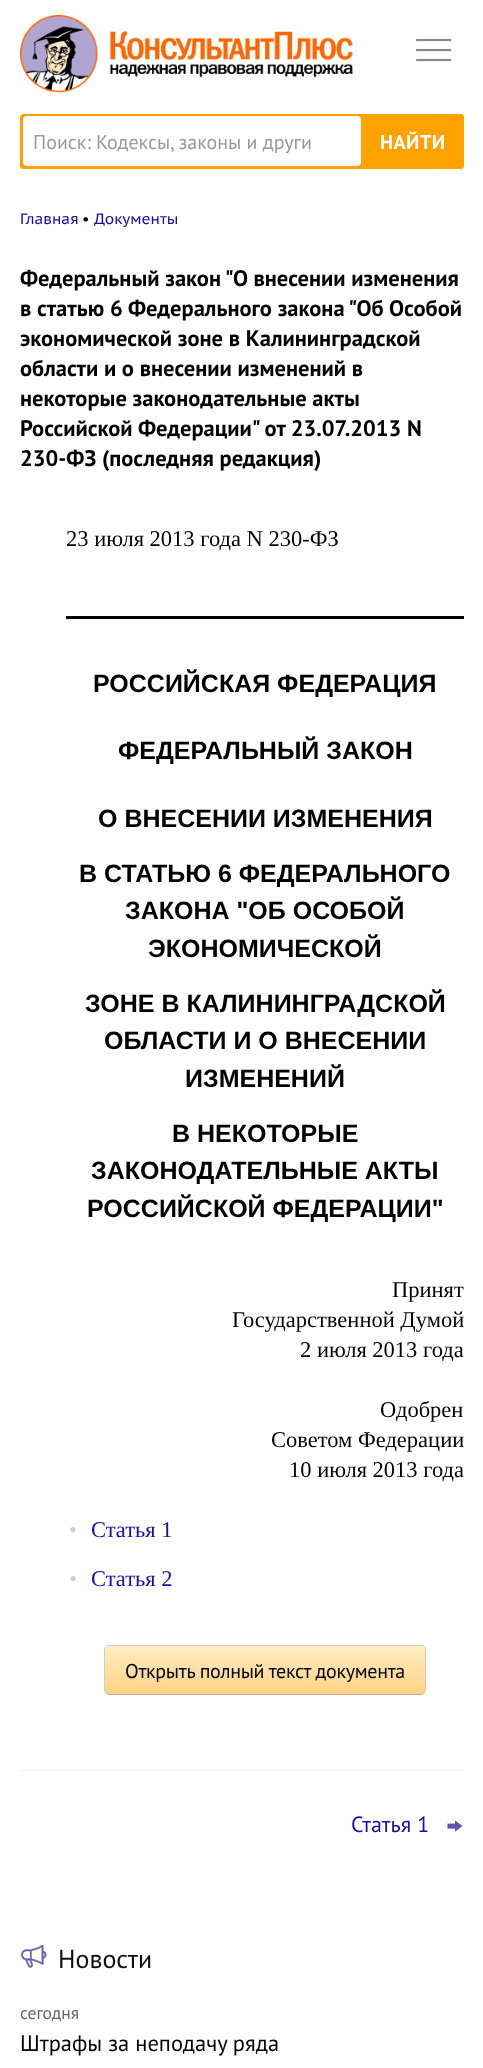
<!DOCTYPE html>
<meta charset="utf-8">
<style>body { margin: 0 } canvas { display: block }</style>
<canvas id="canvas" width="483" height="2068"></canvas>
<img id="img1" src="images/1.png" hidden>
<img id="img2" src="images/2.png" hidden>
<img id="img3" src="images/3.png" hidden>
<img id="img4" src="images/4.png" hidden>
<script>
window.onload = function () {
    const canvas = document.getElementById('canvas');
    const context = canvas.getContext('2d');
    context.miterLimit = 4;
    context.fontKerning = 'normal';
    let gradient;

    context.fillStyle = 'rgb(255, 255, 255)';
    context.fillRect(0, 0, 483, 2068);
    context.drawImage(document.getElementById('img1'), 20, 15, 333, 78);
    context.drawImage(document.getElementById('img2'), 416, 38, 36, 24);
    context.fillStyle = 'rgb(255, 162, 0)';
    context.beginPath();
    context.roundRect(20, 114, 444, 55, 4);
    context.fill();
    context.fillStyle = 'rgb(255, 255, 255)';
    context.beginPath();
    context.roundRect(23, 116, 338, 50, 4);
    context.fill();
    context.fillStyle = 'rgb(255, 162, 0)';
    context.beginPath();
    context.roundRect(361, 114, 103, 55, 4);
    context.fill();
    context.fillStyle = 'rgb(0, 0, 0)';
    context.fillRect(66, 616, 398, 3);
    context.beginPath();
    context.roundRect(104.5, 1645.5, 321, 49, 4.5);
    context.strokeStyle = 'rgb(218, 202, 179)';
    context.stroke();
    context.fillStyle = 'rgba(73, 49, 12, 0.2)';
    context.beginPath();
    context.moveTo(105, 1690);
    context.lineTo(105, 1691);
    context.bezierCurveTo(105, 1693, 107, 1695, 109, 1695);
    context.lineTo(421, 1695);
    context.bezierCurveTo(423, 1695, 425, 1693, 425, 1691);
    context.lineTo(425, 1690);
    context.bezierCurveTo(425, 1692, 423, 1694, 421, 1694);
    context.lineTo(109, 1694);
    context.bezierCurveTo(107, 1694, 105, 1692, 105, 1690);
    context.closePath();
    context.fill();
    gradient = context.createLinearGradient(265, 1646, 265, 1694);
    gradient.addColorStop(0, 'rgb(255, 237, 196)');
    gradient.addColorStop(0.97, 'rgb(255, 211, 134)');
    context.fillStyle = gradient;
    context.beginPath();
    context.roundRect(105, 1646, 320, 48, 4);
    context.fill();
    context.fillStyle = 'rgb(242, 242, 242)';
    context.fillRect(20, 1770, 444, 1);
    context.drawImage(document.getElementById('img3'), 447, 1820, 16, 12);
    context.drawImage(document.getElementById('img4'), 21, 1944, 26, 24);
    context.font = '20px PT Sans';
    context.fillStyle = 'rgb(153, 153, 153)';
    context.fillText('Поиск: Кодексы, законы и други', 33, 149);
    context.letterSpacing = '0.5px';
    context.font = 'bold 20px PT Sans';
    context.fillStyle = 'rgb(255, 255, 255)';
    context.fillText('НАЙТИ', 380, 149);
    context.letterSpacing = '0px';
    context.font = '15px PT Sans Caption';
    context.fillStyle = 'rgb(26, 13, 171)';
    context.fillText('Главная', 20, 224);
    context.fillStyle = 'rgb(0, 0, 0)';
    context.fillText('•', 82, 224);
    context.fillStyle = 'rgb(26, 13, 171)';
    context.fillText('Документы', 94, 224);
    context.font = 'bold 22.5px PT Sans';
    context.fillStyle = 'rgb(0, 0, 0)';
    context.fillText('Федеральный закон "О внесении изменения', 20, 286);
    context.fillText('в статью 6 Федерального закона "Об Особой', 20, 316);
    context.fillText('экономической зоне в Калининградской', 20, 346);
    context.fillText('области и о внесении изменений в', 20, 376);
    context.fillText('некоторые законодательные акты', 20, 406);
    context.fillText('Российской Федерации" от 23.07.2013 N', 20, 436);
    context.fillText('230-ФЗ (последняя редакция)', 20, 466);
    context.font = '22.5px Liberation Serif';
    context.fillText('23 июля 2013 года N 230-ФЗ', 66, 546);
    context.font = 'bold 25px Liberation Sans';
    context.fillText('РОССИЙСКАЯ ФЕДЕРАЦИЯ', 93, 692);
    context.fillText('ФЕДЕРАЛЬНЫЙ ЗАКОН', 118, 759);
    context.fillText('О ВНЕСЕНИИ ИЗМЕНЕНИЯ', 98, 827);
    context.fillText('В СТАТЬЮ 6 ФЕДЕРАЛЬНОГО', 79, 882);
    context.fillText('ЗАКОНА "ОБ ОСОБОЙ', 125, 919);
    context.fillText('ЭКОНОМИЧЕСКОЙ', 148, 957);
    context.fillText('ЗОНЕ В КАЛИНИНГРАДСКОЙ', 85, 1012);
    context.fillText('ОБЛАСТИ И О ВНЕСЕНИИ', 104, 1049);
    context.fillText('ИЗМЕНЕНИЙ', 185, 1087);
    context.fillText('В НЕКОТОРЫЕ', 172, 1142);
    context.fillText('ЗАКОНОДАТЕЛЬНЫЕ АКТЫ', 91, 1179);
    context.fillText('РОССИЙСКОЙ ФЕДЕРАЦИИ"', 87, 1217);
    context.font = '22.5px Liberation Serif';
    context.fillText('Принят', 392, 1297);
    context.fillText('Государственной Думой', 232, 1327);
    context.fillText('2 июля 2013 года', 300, 1357);
    context.fillText('Одобрен', 380, 1417);
    context.fillText('Советом Федерации', 271, 1447);
    context.fillText('10 июля 2013 года', 289, 1477);
    context.fillStyle = 'rgb(209, 205, 215)';
    context.fillText('•', 69, 1537);
    context.fillStyle = 'rgb(26, 13, 171)';
    context.fillText('Статья 1', 91, 1537);
    context.fillStyle = 'rgb(209, 205, 215)';
    context.fillText('•', 69, 1586);
    context.fillStyle = 'rgb(26, 13, 171)';
    context.fillText('Статья 2', 91, 1586);
    context.letterSpacing = '-0.3px';
    context.font = '20px PT Sans';
    context.fillStyle = 'rgb(0, 0, 0)';
    context.fillText('Открыть полный текст документа', 125, 1678);
    context.letterSpacing = '0px';
    context.font = '22px PT Sans';
    context.fillStyle = 'rgb(26, 13, 171)';
    context.fillText('Статья 1', 351, 1832);
    context.font = '26px PT Sans';
    context.fillStyle = 'rgb(14, 14, 14)';
    context.fillText('Новости', 58, 1968);
    context.font = '17.5px PT Sans';
    context.fillStyle = 'rgb(102, 102, 102)';
    context.fillText('сегодня', 20, 2019);
    context.font = '22.5px PT Sans';
    context.fillStyle = 'rgb(0, 0, 0)';
    context.fillText('Штрафы за неподачу ряда', 20, 2051);
};
</script>
